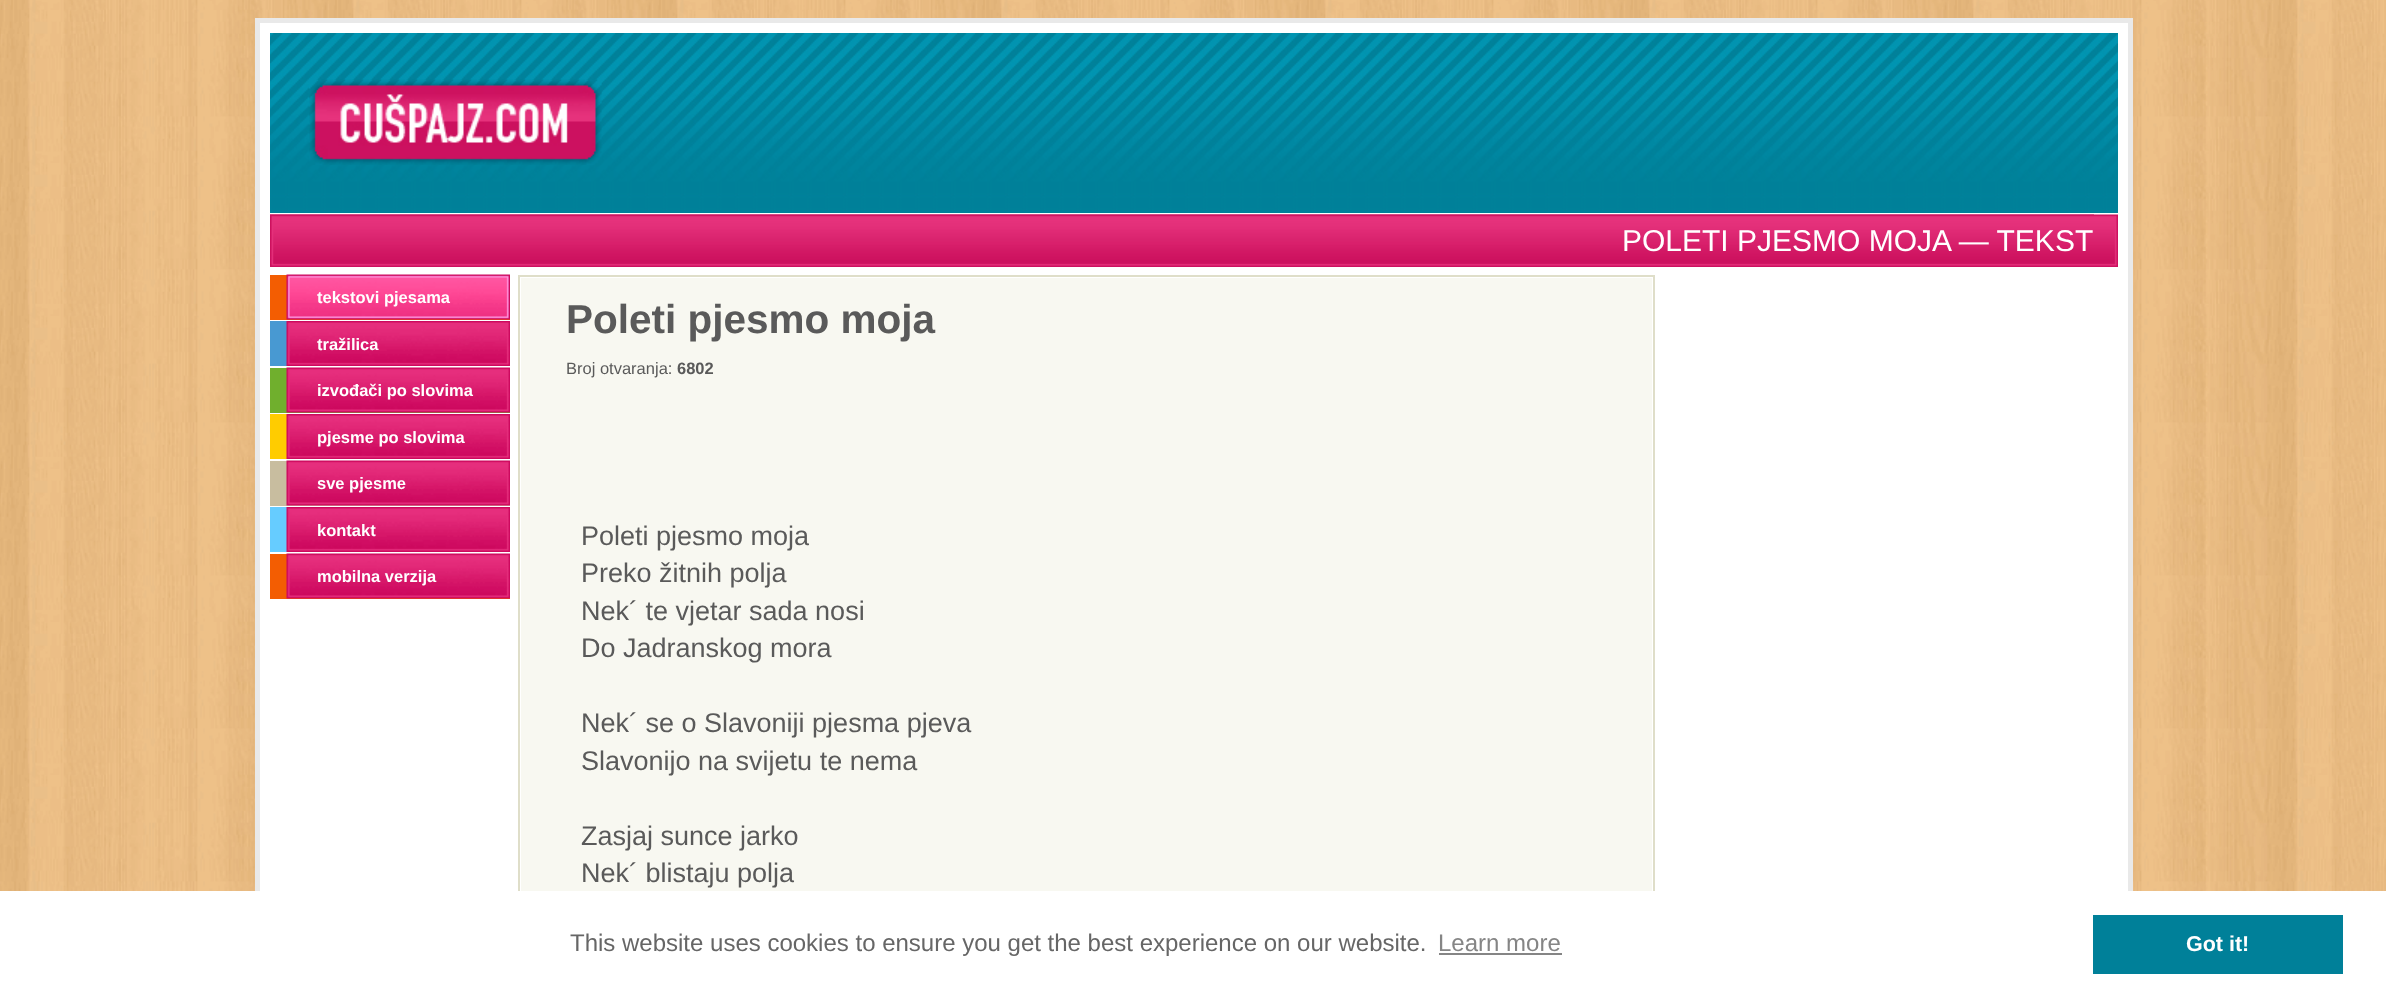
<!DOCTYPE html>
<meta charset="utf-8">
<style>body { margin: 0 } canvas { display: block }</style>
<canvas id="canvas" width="2386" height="997"></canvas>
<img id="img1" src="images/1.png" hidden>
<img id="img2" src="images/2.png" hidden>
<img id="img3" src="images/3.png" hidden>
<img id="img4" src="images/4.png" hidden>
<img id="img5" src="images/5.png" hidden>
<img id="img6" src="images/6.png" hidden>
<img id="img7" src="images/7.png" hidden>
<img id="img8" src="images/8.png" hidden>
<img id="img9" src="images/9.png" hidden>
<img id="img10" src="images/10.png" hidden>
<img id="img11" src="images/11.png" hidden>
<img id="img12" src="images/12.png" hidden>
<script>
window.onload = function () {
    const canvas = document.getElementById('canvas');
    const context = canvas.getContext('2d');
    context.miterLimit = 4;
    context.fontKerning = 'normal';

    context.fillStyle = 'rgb(255, 255, 255)';
    context.fillRect(0, 0, 2386, 997);
    context.drawImage(document.getElementById('img1'), 0, 0, 2386, 891);
    context.fillRect(260, 23, 1868, 868);
    context.strokeStyle = 'rgb(233, 233, 233)';
    context.lineWidth = 5;
    context.strokeRect(257.5, 20.5, 1873, 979);
    context.drawImage(document.getElementById('img2'), 270, 33, 1848, 180);
    context.drawImage(document.getElementById('img3'), 309, 79, 293, 86);
    context.drawImage(document.getElementById('img4'), 270, 214, 1848, 53);
    context.drawImage(document.getElementById('img5'), 270, 214, 1824, 1);
    context.fillStyle = 'rgb(243, 93, 2)';
    context.fillRect(270, 275, 240, 45);
    context.drawImage(document.getElementById('img6'), 286, 274, 224, 46);
    context.fillStyle = 'rgb(72, 153, 210)';
    context.fillRect(270, 321, 17, 45);
    context.drawImage(document.getElementById('img7'), 286, 321, 224, 45);
    context.fillStyle = 'rgb(112, 175, 45)';
    context.fillRect(270, 368, 240, 45);
    context.drawImage(document.getElementById('img8'), 286, 367, 224, 46);
    context.fillStyle = 'rgb(255, 204, 0)';
    context.fillRect(270, 414, 17, 45);
    context.drawImage(document.getElementById('img9'), 286, 414, 224, 45);
    context.fillStyle = 'rgb(200, 189, 159)';
    context.fillRect(270, 461, 240, 45);
    context.drawImage(document.getElementById('img10'), 286, 460, 224, 46);
    context.fillStyle = 'rgb(102, 204, 255)';
    context.fillRect(270, 507, 17, 45);
    context.drawImage(document.getElementById('img11'), 286, 507, 224, 45);
    context.fillStyle = 'rgb(243, 93, 2)';
    context.fillRect(270, 554, 240, 45);
    context.drawImage(document.getElementById('img12'), 286, 553, 224, 46);
    context.strokeStyle = 'rgb(223, 222, 201)';
    context.lineWidth = 2;
    context.strokeRect(519, 276, 1135, 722);
    context.fillStyle = 'rgb(248, 248, 241)';
    context.fillRect(521, 278, 1131, 613);
    context.fillStyle = 'rgb(255, 255, 255)';
    context.fillRect(255, 891, 1878, 106);
    context.fillStyle = 'rgb(133, 133, 133)';
    context.fillRect(1439, 953, 123, 2);
    context.fillStyle = 'rgb(0, 128, 153)';
    context.fillRect(2093, 915, 250, 59);
    context.font = '30px Liberation Sans';
    context.fillStyle = 'rgb(255, 255, 255)';
    context.fillText('POLETI PJESMO MOJA — TEKST', 1622, 251);
    context.font = 'bold 16.5px Liberation Sans';
    context.fillText('tekstovi pjesama', 317, 303);
    context.fillText('tražilica', 317, 350);
    context.fillText('izvođači po slovima', 317, 396);
    context.fillText('pjesme po slovima', 317, 443);
    context.fillText('sve pjesme', 317, 489);
    context.fillText('kontakt', 317, 536);
    context.fillText('mobilna verzija', 317, 582);
    context.font = 'bold 40.5px Liberation Sans';
    context.fillStyle = 'rgb(90, 90, 90)';
    context.fillText('Poleti pjesmo moja', 566, 333);
    context.font = '16.5px Liberation Sans';
    context.fillText('Broj otvaranja:', 566, 374);
    context.font = 'bold 16.5px Liberation Sans';
    context.fillText('6802', 677, 374);
    context.font = '27px Liberation Sans';
    context.fillText('Poleti pjesmo moja', 581, 545);
    context.fillText('Preko žitnih polja', 581, 582);
    context.fillText('Nek´ te vjetar sada nosi', 581, 620);
    context.fillText('Do Jadranskog mora', 581, 657);
    context.fillText('Nek´ se o Slavoniji pjesma pjeva', 581, 732);
    context.fillText('Slavonijo na svijetu te nema', 581, 770);
    context.fillText('Zasjaj sunce jarko', 581, 845);
    context.fillText('Nek´ blistaju polja', 581, 882);
    context.font = '24px Liberation Sans';
    context.fillStyle = 'rgb(102, 102, 102)';
    context.fillText('This website uses cookies to ensure you get the best experience on our website.', 570, 951);
    context.fillStyle = 'rgb(133, 133, 133)';
    context.fillText('Learn more', 1438, 951);
    context.font = 'bold 21.5px Liberation Sans';
    context.fillStyle = 'rgb(255, 255, 255)';
    context.fillText('Got it!', 2186, 951);
};
</script>
